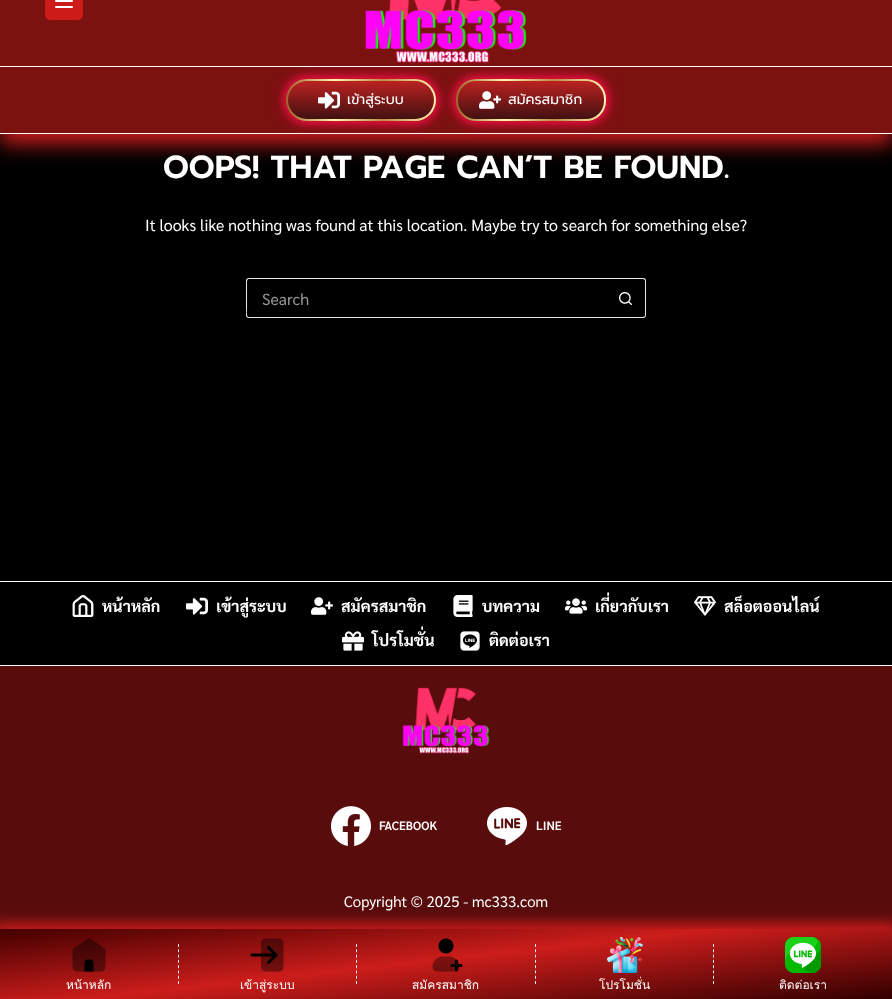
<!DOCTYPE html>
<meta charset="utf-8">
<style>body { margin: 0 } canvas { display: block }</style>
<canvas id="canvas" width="892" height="999"></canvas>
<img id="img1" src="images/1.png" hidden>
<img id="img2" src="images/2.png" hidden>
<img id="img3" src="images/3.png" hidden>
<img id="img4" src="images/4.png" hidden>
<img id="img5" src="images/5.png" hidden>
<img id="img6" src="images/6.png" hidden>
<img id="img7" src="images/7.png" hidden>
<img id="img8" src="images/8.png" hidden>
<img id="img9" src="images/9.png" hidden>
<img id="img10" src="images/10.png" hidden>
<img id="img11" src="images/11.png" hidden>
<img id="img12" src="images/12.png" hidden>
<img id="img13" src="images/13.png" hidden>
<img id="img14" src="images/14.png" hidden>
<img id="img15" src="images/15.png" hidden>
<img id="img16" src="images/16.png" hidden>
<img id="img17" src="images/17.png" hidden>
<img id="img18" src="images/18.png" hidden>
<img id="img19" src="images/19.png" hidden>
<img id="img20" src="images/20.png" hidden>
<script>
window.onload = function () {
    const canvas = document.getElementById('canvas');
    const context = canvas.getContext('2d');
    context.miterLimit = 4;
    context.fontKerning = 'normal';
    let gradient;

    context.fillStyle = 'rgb(0, 0, 0)';
    context.fillRect(0, 0, 892, 999);
    context.fillStyle = 'rgb(203, 28, 26)';
    context.filter = 'blur(10px)';
    context.beginPath();
    context.rect(0, 77, 892, 67);
    context.fill();
    context.filter = 'none';
    context.fillStyle = 'rgb(123, 18, 16)';
    context.fillRect(0, 67, 892, 66);
    context.fillStyle = 'rgb(255, 255, 255)';
    context.fillRect(0, 133, 892, 1);
    context.fillStyle = 'rgb(236, 8, 77)';
    context.filter = 'blur(7.5px)';
    context.beginPath();
    context.roundRect(286, 79, 150, 42, 21);
    context.fill();
    context.filter = 'none';
    context.fillStyle = 'rgb(203, 28, 26)';
    context.filter = 'blur(5px)';
    context.beginPath();
    context.roundRect(286, 79, 150, 42, 21);
    context.fill();
    context.filter = 'none';
    context.fillStyle = 'rgb(236, 8, 77)';
    context.filter = 'blur(4.5px)';
    context.beginPath();
    context.roundRect(286, 79, 150, 42, 21);
    context.fill();
    context.filter = 'none';
    gradient = context.createLinearGradient(286, 100, 436, 100);
    gradient.addColorStop(0, 'rgb(156, 103, 39)');
    gradient.addColorStop(0.32, 'rgb(253, 246, 174)');
    gradient.addColorStop(0.65, 'rgb(189, 141, 66)');
    gradient.addColorStop(1, 'rgb(253, 246, 174)');
    context.fillStyle = gradient;
    context.beginPath();
    context.roundRect(286, 79, 150, 42, 21);
    context.fill();
    gradient = context.createLinearGradient(361, 79, 361, 121);
    gradient.addColorStop(0, 'rgb(194, 35, 35)');
    gradient.addColorStop(1, 'rgb(60, 15, 15)');
    context.fillStyle = gradient;
    context.beginPath();
    context.roundRect(288, 81, 146, 38, 19);
    context.fill();
    context.fillStyle = 'rgb(236, 8, 77)';
    context.filter = 'blur(7.5px)';
    context.beginPath();
    context.roundRect(456, 79, 150, 42, 20);
    context.fill();
    context.filter = 'none';
    context.fillStyle = 'rgb(203, 28, 26)';
    context.filter = 'blur(5px)';
    context.beginPath();
    context.roundRect(456, 79, 150, 42, 20);
    context.fill();
    context.filter = 'none';
    context.fillStyle = 'rgb(236, 8, 77)';
    context.filter = 'blur(4.5px)';
    context.beginPath();
    context.roundRect(456, 79, 150, 42, 20);
    context.fill();
    context.filter = 'none';
    context.fillStyle = 'rgb(123, 18, 16)';
    context.fillRect(0, 0, 892, 66);
    context.fillStyle = 'rgb(255, 255, 255)';
    context.fillRect(0, 66, 892, 1);
    context.fillStyle = 'rgb(203, 28, 26)';
    context.beginPath();
    context.roundRect(45, -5, 38, 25, 5);
    context.fill();
    context.fillStyle = 'rgb(255, 255, 255)';
    context.beginPath();
    context.roundRect(55, 0, 18, 2, 1);
    context.fill();
    context.beginPath();
    context.roundRect(55, 6, 18, 2, 1);
    context.fill();
    context.drawImage(document.getElementById('img1'), 365, 0, 162, 63);
    context.drawImage(document.getElementById('img2'), 318, 91, 22, 18);
    gradient = context.createLinearGradient(456, 100, 606, 100);
    gradient.addColorStop(0, 'rgb(156, 103, 39)');
    gradient.addColorStop(0.32, 'rgb(253, 246, 174)');
    gradient.addColorStop(0.65, 'rgb(189, 141, 66)');
    gradient.addColorStop(1, 'rgb(253, 246, 174)');
    context.fillStyle = gradient;
    context.beginPath();
    context.roundRect(456, 79, 150, 42, 20);
    context.fill();
    gradient = context.createLinearGradient(531, 79, 531, 121);
    gradient.addColorStop(0, 'rgb(194, 35, 35)');
    gradient.addColorStop(1, 'rgb(60, 15, 15)');
    context.fillStyle = gradient;
    context.beginPath();
    context.roundRect(458, 81, 146, 38, 18);
    context.fill();
    context.drawImage(document.getElementById('img3'), 479, 91, 22, 18);
    context.fillStyle = 'rgb(225, 232, 237)';
    context.beginPath();
    context.moveTo(249, 278);
    context.lineTo(606, 278);
    context.lineTo(606, 318);
    context.lineTo(249, 318);
    context.bezierCurveTo(247, 318, 246, 317, 246, 315);
    context.lineTo(246, 281);
    context.bezierCurveTo(246, 279, 247, 278, 249, 278);
    context.closePath();
    context.moveTo(249, 279);
    context.lineTo(606, 279);
    context.lineTo(606, 317);
    context.lineTo(248, 317);
    context.bezierCurveTo(246, 315, 247, 310, 247, 309);
    context.lineTo(247, 281);
    context.lineTo(248, 279);
    context.closePath();
    context.fill('evenodd');
    context.beginPath();
    context.moveTo(606, 278);
    context.lineTo(643, 278);
    context.bezierCurveTo(645, 278, 646, 279, 646, 281);
    context.lineTo(646, 315);
    context.bezierCurveTo(646, 317, 645, 318, 643, 318);
    context.lineTo(606, 318);
    context.closePath();
    context.moveTo(606, 279);
    context.lineTo(643, 279);
    context.bezierCurveTo(644, 279, 645, 280, 645, 281);
    context.lineTo(645, 315);
    context.bezierCurveTo(645, 316, 644, 317, 643, 317);
    context.lineTo(606, 317);
    context.closePath();
    context.fill('evenodd');
    context.drawImage(document.getElementById('img4'), 619, 292, 13, 13);
    context.fillStyle = 'rgb(255, 255, 255)';
    context.fillRect(0, 581, 892, 1);
    context.fillRect(0, 665, 892, 1);
    context.drawImage(document.getElementById('img5'), 72, 595, 22, 22);
    context.drawImage(document.getElementById('img6'), 186, 597, 22, 18);
    context.drawImage(document.getElementById('img7'), 311, 597, 22, 18);
    context.drawImage(document.getElementById('img8'), 453, 595, 20, 22);
    context.drawImage(document.getElementById('img9'), 565, 598, 22, 16);
    context.drawImage(document.getElementById('img10'), 694, 596, 22, 20);
    context.drawImage(document.getElementById('img11'), 342, 631, 22, 20);
    context.drawImage(document.getElementById('img12'), 460, 631, 20, 20);
    context.fillStyle = 'rgb(88, 12, 12)';
    context.fillRect(0, 666, 892, 263);
    context.drawImage(document.getElementById('img13'), 402, 687, 88, 67);
    context.drawImage(document.getElementById('img14'), 331, 806, 40, 40);
    context.drawImage(document.getElementById('img15'), 487, 807, 40, 39);
    context.fillStyle = 'rgb(203, 28, 26)';
    context.filter = 'blur(7px)';
    context.beginPath();
    context.rect(-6, 923, 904, 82);
    context.fill();
    context.filter = 'none';
    gradient = context.createLinearGradient(437, 883, 455, 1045);
    gradient.addColorStop(0, 'rgb(72, 0, 0)');
    gradient.addColorStop(0.47, 'rgb(204, 29, 27)');
    gradient.addColorStop(1, 'rgb(54, 0, 0)');
    context.fillStyle = gradient;
    context.fillRect(0, 929, 892, 70);
    context.drawImage(document.getElementById('img16'), 72, 938, 34, 34);
    context.beginPath();
    context.moveTo(178.5, 944);
    context.lineTo(178.5, 984);
    context.strokeStyle = 'rgb(225, 232, 237)';
    context.setLineDash([3, 2.29]);
    context.stroke();
    context.beginPath();
    context.moveTo(356.5, 944);
    context.lineTo(356.5, 984);
    context.stroke();
    context.drawImage(document.getElementById('img17'), 250, 938, 34, 34);
    context.drawImage(document.getElementById('img18'), 432, 938, 31, 34);
    context.beginPath();
    context.moveTo(535.5, 944);
    context.lineTo(535.5, 984);
    context.stroke();
    context.drawImage(document.getElementById('img19'), 607, 937, 36, 36);
    context.beginPath();
    context.moveTo(713.5, 944);
    context.lineTo(713.5, 984);
    context.stroke();
    context.drawImage(document.getElementById('img20'), 785, 937, 36, 36);
    context.font = '14px Prompt';
    context.fillStyle = 'rgb(255, 255, 255)';
    context.fillText('เข้าสู่ระบบ', 347, 104);
    context.fillText('สมัครสมาชิก', 508, 104);
    context.font = '600 32px Prompt';
    context.fillText('OOPS! THAT PAGE CAN’T BE FOUND.', 163, 178);
    context.font = '16px Sarabun';
    context.fillText('It looks like nothing was found at this location. Maybe try to search for something else?', 145, 231);
    context.fillStyle = 'rgb(153, 153, 153)';
    context.fillText('Search', 262, 305);
    context.font = 'bold 16px Sarabun';
    context.fillStyle = 'rgb(255, 255, 255)';
    context.fillText('หน้าหลัก', 102, 612);
    context.fillText('เข้าสู่ระบบ', 216, 612);
    context.fillText('สมัครสมาชิก', 341, 612);
    context.fillText('บทความ', 482, 612);
    context.fillText('เกี่ยวกับเรา', 595, 612);
    context.fillText('สล็อตออนไลน์', 724, 612);
    context.fillText('โปรโมชั่น', 372, 646);
    context.fillText('ติดต่อเรา', 489, 646);
    context.font = '600 12px Sarabun';
    context.fillText('FACEBOOK', 379, 830);
    context.fillText('LINE', 536, 830);
    context.font = '15px Sarabun';
    context.fillText('Copyright © 2025 - mc333.com', 344, 907);
    context.font = '12px Loma';
    context.fillText('หน้าหลัก', 66, 989);
    context.fillText('เข้าสู่ระบบ', 240, 989);
    context.fillText('สมัครสมาชิก', 412, 989);
    context.fillText('โปรโมชั่น', 599, 989);
    context.fillText('ติดต่อเรา', 779, 989);
};
</script>
